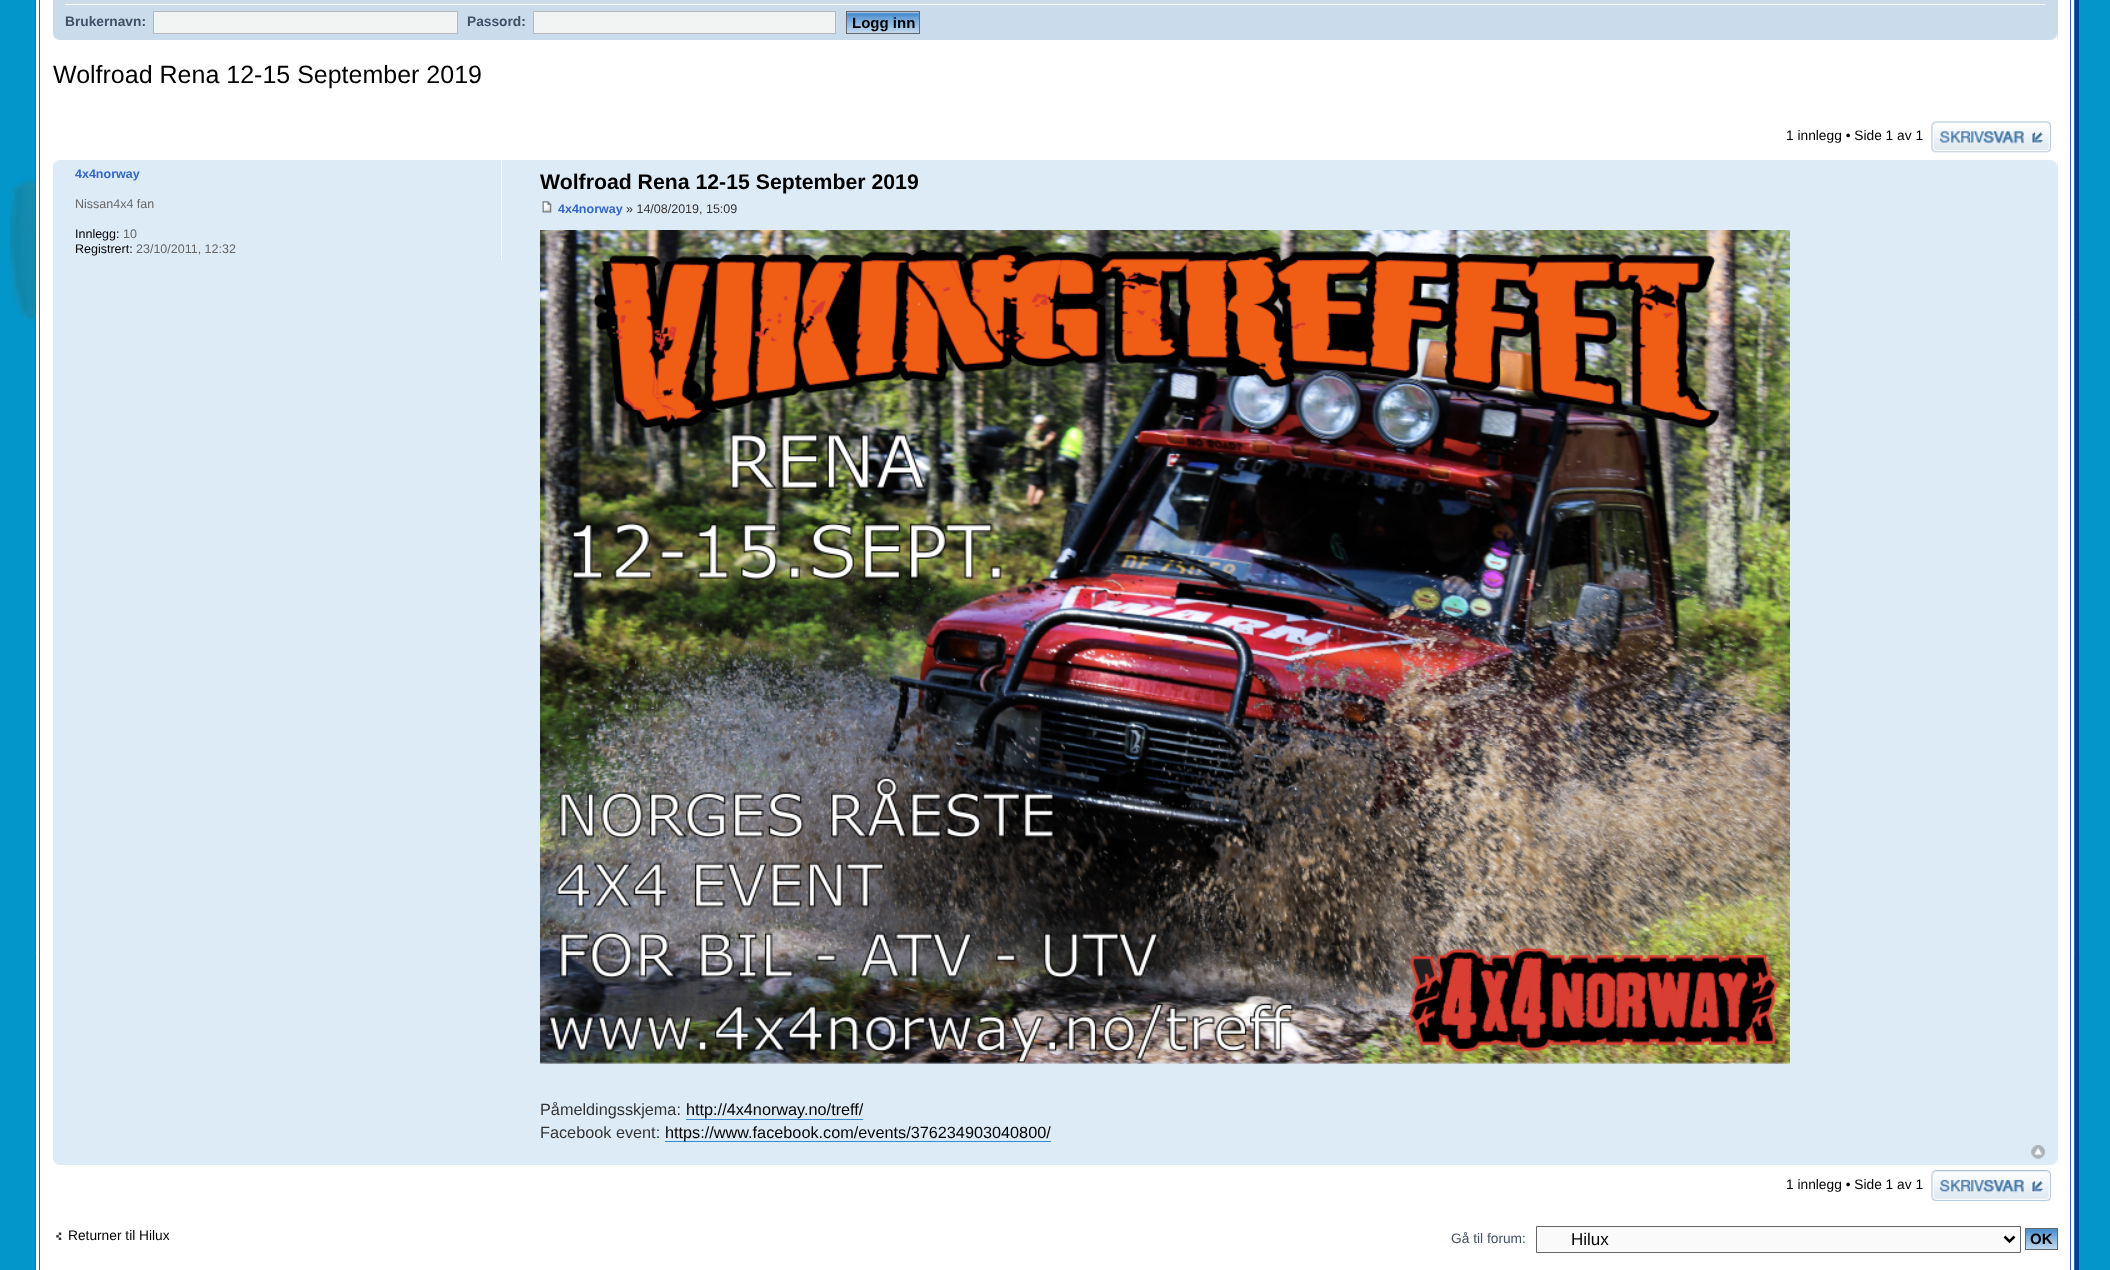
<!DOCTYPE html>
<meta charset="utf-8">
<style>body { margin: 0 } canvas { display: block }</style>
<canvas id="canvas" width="2110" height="1270"></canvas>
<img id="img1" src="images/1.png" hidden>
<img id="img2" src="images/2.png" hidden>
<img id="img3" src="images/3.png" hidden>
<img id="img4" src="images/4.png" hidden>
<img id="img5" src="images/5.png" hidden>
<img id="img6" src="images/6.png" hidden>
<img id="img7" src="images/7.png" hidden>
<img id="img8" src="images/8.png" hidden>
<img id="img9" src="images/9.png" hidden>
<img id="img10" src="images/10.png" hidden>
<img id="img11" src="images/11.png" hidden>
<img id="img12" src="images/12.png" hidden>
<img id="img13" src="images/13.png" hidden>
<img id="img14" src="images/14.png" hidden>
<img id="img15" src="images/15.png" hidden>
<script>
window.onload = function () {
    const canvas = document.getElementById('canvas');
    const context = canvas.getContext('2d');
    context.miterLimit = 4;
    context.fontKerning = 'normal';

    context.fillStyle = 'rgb(3, 150, 202)';
    context.fillRect(0, 0, 2110, 1270);
    context.drawImage(document.getElementById('img1'), 10, 9, 25, 449);
    context.fillStyle = 'rgb(4, 63, 141)';
    context.beginPath();
    context.moveTo(41, 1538);
    context.bezierCurveTo(44, 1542, 48, 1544, 52, 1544);
    context.lineTo(2066, 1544);
    context.bezierCurveTo(2073, 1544, 2079, 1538, 2079, 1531);
    context.lineTo(2079, -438);
    context.bezierCurveTo(2079, -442, 2077, -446, 2073, -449);
    context.bezierCurveTo(2074, -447, 2075, -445, 2075, -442);
    context.lineTo(2075, 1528);
    context.bezierCurveTo(2075, 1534, 2069, 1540, 2062, 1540);
    context.lineTo(48, 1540);
    context.bezierCurveTo(45, 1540, 43, 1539, 41, 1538);
    context.closePath();
    context.fill();
    context.fillStyle = 'rgb(255, 255, 255)';
    context.beginPath();
    context.rect(35.5, -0.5, 2039, 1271);
    context.fill();
    context.strokeStyle = 'rgb(37, 102, 187)';
    context.stroke();
    context.strokeRect(39.5, -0.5, 2031, 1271);
    context.fillStyle = 'rgb(202, 220, 235)';
    context.fillRect(53, 0, 2005, 40);
    context.fillStyle = 'rgb(255, 255, 255)';
    context.fillRect(65, 4, 1980, 1);
    context.fillStyle = 'rgb(242, 243, 243)';
    context.beginPath();
    context.rect(153.5, 11.5, 304, 22);
    context.fill();
    context.strokeStyle = 'rgb(180, 186, 192)';
    context.stroke();
    context.beginPath();
    context.rect(533.5, 11.5, 302, 22);
    context.fill();
    context.stroke();
    context.fillStyle = 'rgb(250, 250, 250)';
    context.fillRect(847, 12, 72, 1);
    context.drawImage(document.getElementById('img2'), 847, 12, 72, 21);
    context.strokeStyle = 'rgb(102, 102, 102)';
    context.strokeRect(846.5, 11.5, 73, 22);
    context.drawImage(document.getElementById('img3'), 53, 34, 6, 6);
    context.drawImage(document.getElementById('img4'), 2051, 34, 7, 6);
    context.drawImage(document.getElementById('img5'), 1931, 121, 121, 32);
    context.fillStyle = 'rgb(221, 235, 247)';
    context.fillRect(53, 160, 2005, 1005);
    context.drawImage(document.getElementById('img6'), 53, 160, 6, 6);
    context.drawImage(document.getElementById('img7'), 2051, 160, 7, 6);
    context.fillStyle = 'rgb(255, 255, 255)';
    context.fillRect(501, 160, 1, 100);
    context.drawImage(document.getElementById('img8'), 542, 201, 10, 12);
    context.drawImage(document.getElementById('img9'), 540, 230, 1250, 834);
    context.fillStyle = 'rgb(54, 138, 210)';
    context.fillRect(686, 1119, 177, 1);
    context.fillRect(665, 1141, 386, 1);
    context.drawImage(document.getElementById('img10'), 2031, 1145, 14, 14);
    context.drawImage(document.getElementById('img11'), 53, 1159, 6, 6);
    context.drawImage(document.getElementById('img12'), 2051, 1159, 7, 6);
    context.drawImage(document.getElementById('img13'), 1931, 1170, 121, 32);
    context.drawImage(document.getElementById('img14'), 56, 1232, 6, 8);
    context.fillStyle = 'rgb(250, 250, 250)';
    context.beginPath();
    context.rect(1536.5, 1226.5, 484, 26);
    context.fill();
    context.stroke();
    context.beginPath();
    context.moveTo(2004.5, 1236.5);
    context.lineTo(2009.5, 1241.5);
    context.lineTo(2014.5, 1236.5);
    context.strokeStyle = 'rgb(0, 0, 0)';
    context.lineWidth = 2.5;
    context.stroke();
    context.drawImage(document.getElementById('img15'), 2026, 1229, 31, 20);
    context.strokeStyle = 'rgb(102, 102, 102)';
    context.lineWidth = 1;
    context.strokeRect(2025.5, 1228.5, 32, 21);
    context.font = 'bold 13.75px Liberation Sans';
    context.fillStyle = 'rgb(66, 80, 103)';
    context.fillText('Brukernavn:', 65, 26);
    context.fillText('Passord:', 467, 26);
    context.font = 'bold 15px Liberation Sans';
    context.fillStyle = 'rgb(0, 0, 0)';
    context.fillText('Logg inn', 852, 28);
    context.font = '25px Liberation Sans';
    context.fillText('Wolfroad Rena 12-15 September 2019', 53, 83);
    context.font = '13.75px Liberation Sans';
    context.fillText('1 innlegg • Side 1 av 1', 1786, 140);
    context.font = 'bold 12.5px Liberation Sans';
    context.fillStyle = 'rgb(51, 102, 204)';
    context.fillText('4x4norway', 75, 178);
    context.font = '12.5px Liberation Sans';
    context.fillStyle = 'rgb(102, 102, 102)';
    context.fillText('Nissan4x4 fan', 75, 208);
    context.fillStyle = 'rgb(0, 0, 0)';
    context.fillText('Innlegg:', 75, 238);
    context.fillStyle = 'rgb(102, 102, 102)';
    context.fillText('10', 123, 238);
    context.fillStyle = 'rgb(0, 0, 0)';
    context.fillText('Registrert:', 75, 253);
    context.fillStyle = 'rgb(102, 102, 102)';
    context.fillText('23/10/2011, 12:32', 136, 253);
    context.font = 'bold 21.25px Liberation Sans';
    context.fillStyle = 'rgb(0, 0, 0)';
    context.fillText('Wolfroad Rena 12-15 September 2019', 540, 189);
    context.font = 'bold 12.5px Liberation Sans';
    context.fillStyle = 'rgb(51, 102, 204)';
    context.fillText('4x4norway', 558, 213);
    context.font = '12.5px Liberation Sans';
    context.fillStyle = 'rgb(51, 51, 51)';
    context.fillText('» 14/08/2019, 15:09', 626, 213);
    context.font = '16.25px Liberation Sans';
    context.fillText('Påmeldingsskjema:', 540, 1115);
    context.fillStyle = 'rgb(0, 0, 0)';
    context.fillText('http://4x4norway.no/treff/', 686, 1115);
    context.fillStyle = 'rgb(51, 51, 51)';
    context.fillText('Facebook event:', 540, 1138);
    context.fillStyle = 'rgb(0, 0, 0)';
    context.fillText('https://www.facebook.com/events/376234903040800/', 665, 1138);
    context.font = '13.75px Liberation Sans';
    context.fillText('1 innlegg • Side 1 av 1', 1786, 1189);
    context.fillText('Returner til Hilux', 68, 1240);
    context.fillStyle = 'rgb(66, 80, 103)';
    context.fillText('Gå til forum:', 1451, 1243);
    context.font = '17px Liberation Sans';
    context.fillStyle = 'rgb(0, 0, 0)';
    context.fillText('Hilux', 1571, 1245);
    context.font = 'bold 15px Liberation Sans';
    context.fillText('OK', 2030, 1244);
};
</script>
